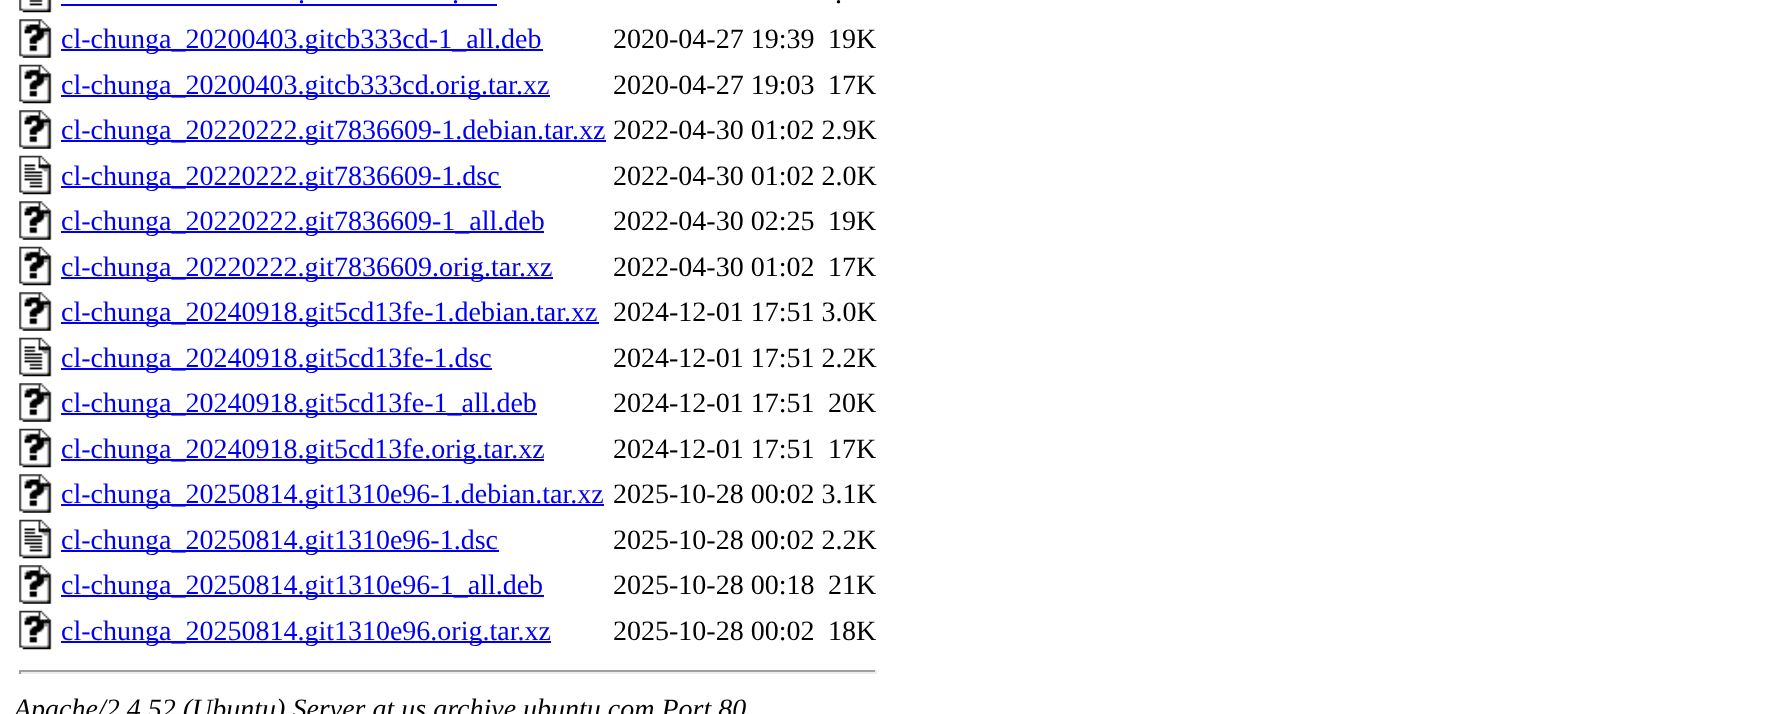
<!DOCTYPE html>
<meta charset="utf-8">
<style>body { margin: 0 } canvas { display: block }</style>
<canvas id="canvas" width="1782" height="714"></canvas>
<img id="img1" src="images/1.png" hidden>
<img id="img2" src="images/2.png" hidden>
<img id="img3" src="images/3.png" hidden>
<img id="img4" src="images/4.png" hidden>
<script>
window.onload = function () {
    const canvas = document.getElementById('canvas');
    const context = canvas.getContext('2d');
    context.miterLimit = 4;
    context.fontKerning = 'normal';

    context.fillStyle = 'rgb(255, 255, 255)';
    context.fillRect(0, 0, 1782, 714);
    context.drawImage(document.getElementById('img1'), 19, 0, 33, 13);
    context.fillStyle = 'rgb(0, 0, 238)';
    context.fillRect(61, 4, 436, 2);
    context.drawImage(document.getElementById('img2'), 19, 19, 33, 39);
    context.fillRect(61, 49, 482, 2);
    context.drawImage(document.getElementById('img3'), 19, 64, 33, 40);
    context.fillRect(61, 95, 489, 2);
    context.drawImage(document.getElementById('img2'), 19, 110, 33, 39);
    context.fillRect(61, 140, 545, 2);
    context.drawImage(document.getElementById('img4'), 19, 155, 33, 40);
    context.fillRect(61, 186, 440, 2);
    context.drawImage(document.getElementById('img2'), 19, 201, 33, 39);
    context.fillRect(61, 231, 483, 2);
    context.drawImage(document.getElementById('img3'), 19, 246, 33, 40);
    context.fillRect(61, 277, 492, 2);
    context.drawImage(document.getElementById('img2'), 19, 292, 33, 39);
    context.fillRect(61, 322, 538, 2);
    context.drawImage(document.getElementById('img4'), 19, 337, 33, 40);
    context.fillRect(61, 368, 431, 2);
    context.drawImage(document.getElementById('img2'), 19, 383, 33, 39);
    context.fillRect(61, 413, 476, 2);
    context.drawImage(document.getElementById('img3'), 19, 428, 33, 40);
    context.fillRect(61, 459, 483, 2);
    context.drawImage(document.getElementById('img2'), 19, 474, 33, 39);
    context.fillRect(61, 504, 543, 2);
    context.drawImage(document.getElementById('img4'), 19, 519, 33, 40);
    context.fillRect(61, 550, 438, 2);
    context.drawImage(document.getElementById('img2'), 19, 565, 33, 39);
    context.fillRect(61, 595, 483, 2);
    context.drawImage(document.getElementById('img3'), 19, 610, 33, 40);
    context.fillRect(61, 641, 490, 2);
    context.fillStyle = 'rgb(159, 159, 159)';
    context.fillRect(19, 670, 858, 2);
    context.fillStyle = 'rgb(238, 238, 238)';
    context.fillRect(875, 670, 2, 4);
    context.fillRect(19, 672, 858, 2);
    context.fillStyle = 'rgb(159, 159, 159)';
    context.fillRect(19, 670, 2, 4);
    context.font = '28px Liberation Serif';
    context.fillStyle = 'rgb(0, 0, 238)';
    context.fillText('.', 298, 3);
    context.fillText('.', 452, 3);
    context.fillStyle = 'rgb(0, 0, 0)';
    context.fillText('.', 835, 3);
    context.fillStyle = 'rgb(0, 0, 238)';
    context.fillText('cl-chunga_20200403.gitcb333cd-1_all.deb', 61, 48);
    context.fillStyle = 'rgb(0, 0, 0)';
    context.fillText('2020-04-27 19:39', 613, 48);
    context.fillText('19K', 828, 48);
    context.fillStyle = 'rgb(0, 0, 238)';
    context.fillText('cl-chunga_20200403.gitcb333cd.orig.tar.xz', 61, 94);
    context.fillStyle = 'rgb(0, 0, 0)';
    context.fillText('2020-04-27 19:03', 613, 94);
    context.fillText('17K', 828, 94);
    context.fillStyle = 'rgb(0, 0, 238)';
    context.fillText('cl-chunga_20220222.git7836609-1.debian.tar.xz', 61, 139);
    context.fillStyle = 'rgb(0, 0, 0)';
    context.fillText('2022-04-30 01:02 2.9K', 613, 139);
    context.fillStyle = 'rgb(0, 0, 238)';
    context.fillText('cl-chunga_20220222.git7836609-1.dsc', 61, 185);
    context.fillStyle = 'rgb(0, 0, 0)';
    context.fillText('2022-04-30 01:02 2.0K', 613, 185);
    context.fillStyle = 'rgb(0, 0, 238)';
    context.fillText('cl-chunga_20220222.git7836609-1_all.deb', 61, 230);
    context.fillStyle = 'rgb(0, 0, 0)';
    context.fillText('2022-04-30 02:25', 613, 230);
    context.fillText('19K', 828, 230);
    context.fillStyle = 'rgb(0, 0, 238)';
    context.fillText('cl-chunga_20220222.git7836609.orig.tar.xz', 61, 276);
    context.fillStyle = 'rgb(0, 0, 0)';
    context.fillText('2022-04-30 01:02', 613, 276);
    context.fillText('17K', 828, 276);
    context.fillStyle = 'rgb(0, 0, 238)';
    context.fillText('cl-chunga_20240918.git5cd13fe-1.debian.tar.xz', 61, 321);
    context.fillStyle = 'rgb(0, 0, 0)';
    context.fillText('2024-12-01 17:51 3.0K', 613, 321);
    context.fillStyle = 'rgb(0, 0, 238)';
    context.fillText('cl-chunga_20240918.git5cd13fe-1.dsc', 61, 367);
    context.fillStyle = 'rgb(0, 0, 0)';
    context.fillText('2024-12-01 17:51 2.2K', 613, 367);
    context.fillStyle = 'rgb(0, 0, 238)';
    context.fillText('cl-chunga_20240918.git5cd13fe-1_all.deb', 61, 412);
    context.fillStyle = 'rgb(0, 0, 0)';
    context.fillText('2024-12-01 17:51', 613, 412);
    context.fillText('20K', 828, 412);
    context.fillStyle = 'rgb(0, 0, 238)';
    context.fillText('cl-chunga_20240918.git5cd13fe.orig.tar.xz', 61, 458);
    context.fillStyle = 'rgb(0, 0, 0)';
    context.fillText('2024-12-01 17:51', 613, 458);
    context.fillText('17K', 828, 458);
    context.fillStyle = 'rgb(0, 0, 238)';
    context.fillText('cl-chunga_20250814.git1310e96-1.debian.tar.xz', 61, 503);
    context.fillStyle = 'rgb(0, 0, 0)';
    context.fillText('2025-10-28 00:02 3.1K', 613, 503);
    context.fillStyle = 'rgb(0, 0, 238)';
    context.fillText('cl-chunga_20250814.git1310e96-1.dsc', 61, 549);
    context.fillStyle = 'rgb(0, 0, 0)';
    context.fillText('2025-10-28 00:02 2.2K', 613, 549);
    context.fillStyle = 'rgb(0, 0, 238)';
    context.fillText('cl-chunga_20250814.git1310e96-1_all.deb', 61, 594);
    context.fillStyle = 'rgb(0, 0, 0)';
    context.fillText('2025-10-28 00:18', 613, 594);
    context.fillText('21K', 828, 594);
    context.fillStyle = 'rgb(0, 0, 238)';
    context.fillText('cl-chunga_20250814.git1310e96.orig.tar.xz', 61, 640);
    context.fillStyle = 'rgb(0, 0, 0)';
    context.fillText('2025-10-28 00:02', 613, 640);
    context.fillText('18K', 828, 640);
    context.font = 'italic 28px Liberation Serif';
    context.fillText('Apache/2.4.52 (Ubuntu) Server at us.archive.ubuntu.com Port 80', 14, 718);
};
</script>
